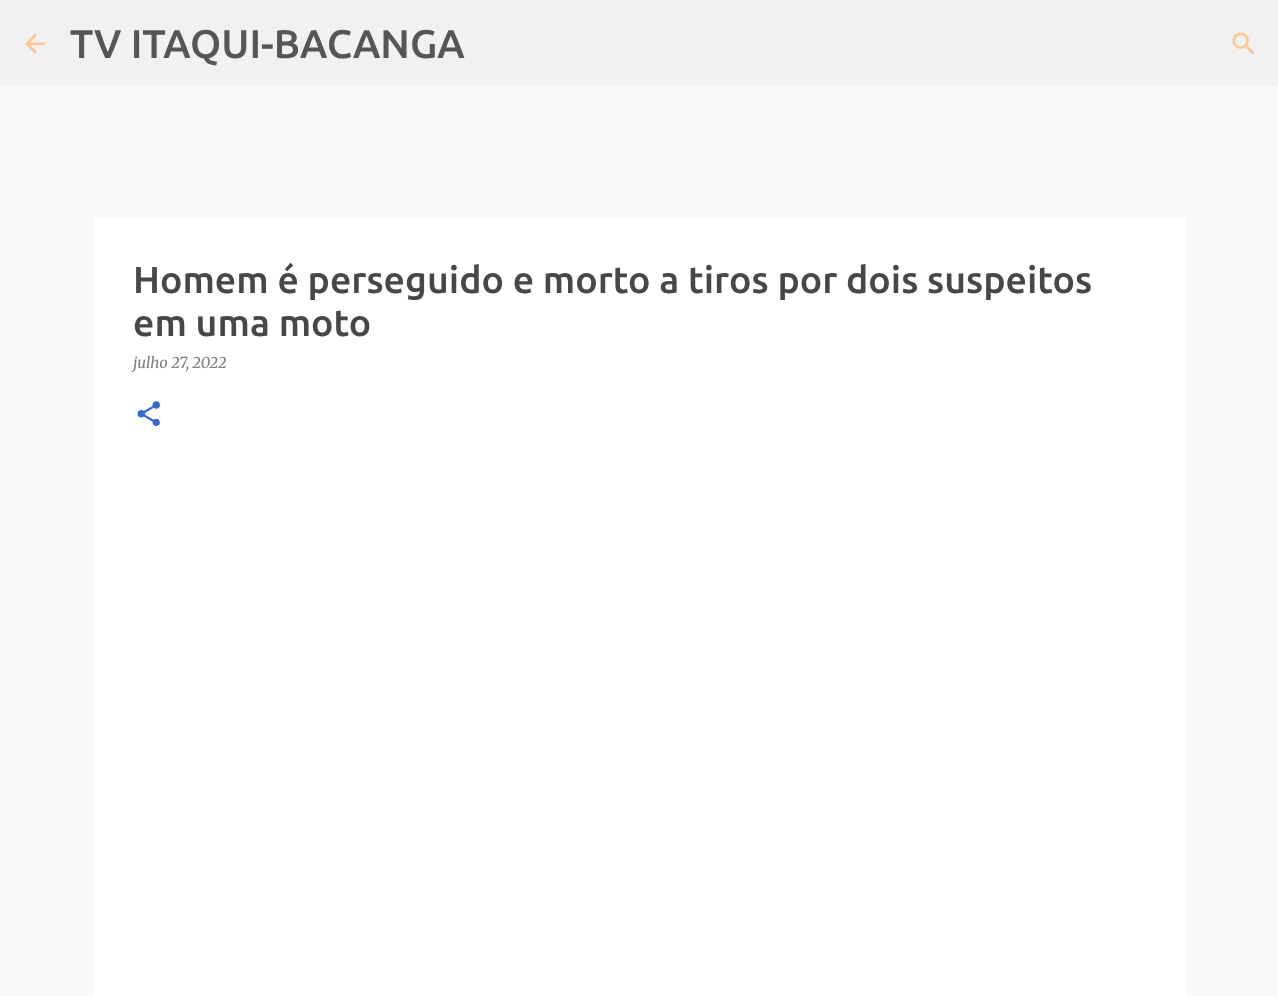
<!DOCTYPE html>
<meta charset="utf-8">
<style>body { margin: 0 } canvas { display: block }</style>
<canvas id="canvas" width="1278" height="996"></canvas>
<img id="img1" src="images/1.png" hidden>
<img id="img2" src="images/2.png" hidden>
<img id="img3" src="images/3.png" hidden>
<script>
window.onload = function () {
    const canvas = document.getElementById('canvas');
    const context = canvas.getContext('2d');
    context.miterLimit = 4;
    context.fontKerning = 'normal';

    context.fillStyle = 'rgb(249, 249, 249)';
    context.fillRect(0, 0, 1278, 996);
    context.fillStyle = 'rgb(241, 241, 241)';
    context.fillRect(0, 0, 1278, 86);
    context.drawImage(document.getElementById('img1'), 25, 33, 20, 21);
    context.drawImage(document.getElementById('img2'), 1231, 31, 24, 24);
    context.fillStyle = 'rgb(255, 255, 255)';
    context.fillRect(94, 218, 1092, 778);
    context.drawImage(document.getElementById('img3'), 137, 401, 23, 26);
    context.font = '500 40px Ubuntu';
    context.fillStyle = 'rgb(86, 86, 86)';
    context.fillText('TV ITAQUI-BACANGA', 70, 58);
    context.font = '500 37.5px Ubuntu';
    context.fillStyle = 'rgb(71, 71, 71)';
    context.fillText('Homem é perseguido e morto a tiros por dois suspeitos', 133, 293);
    context.fillText('em uma moto', 133, 336);
    context.font = 'italic 15px Merriweather';
    context.fillStyle = 'rgb(124, 124, 124)';
    context.fillText('julho 27, 2022', 133, 368);
};
</script>
